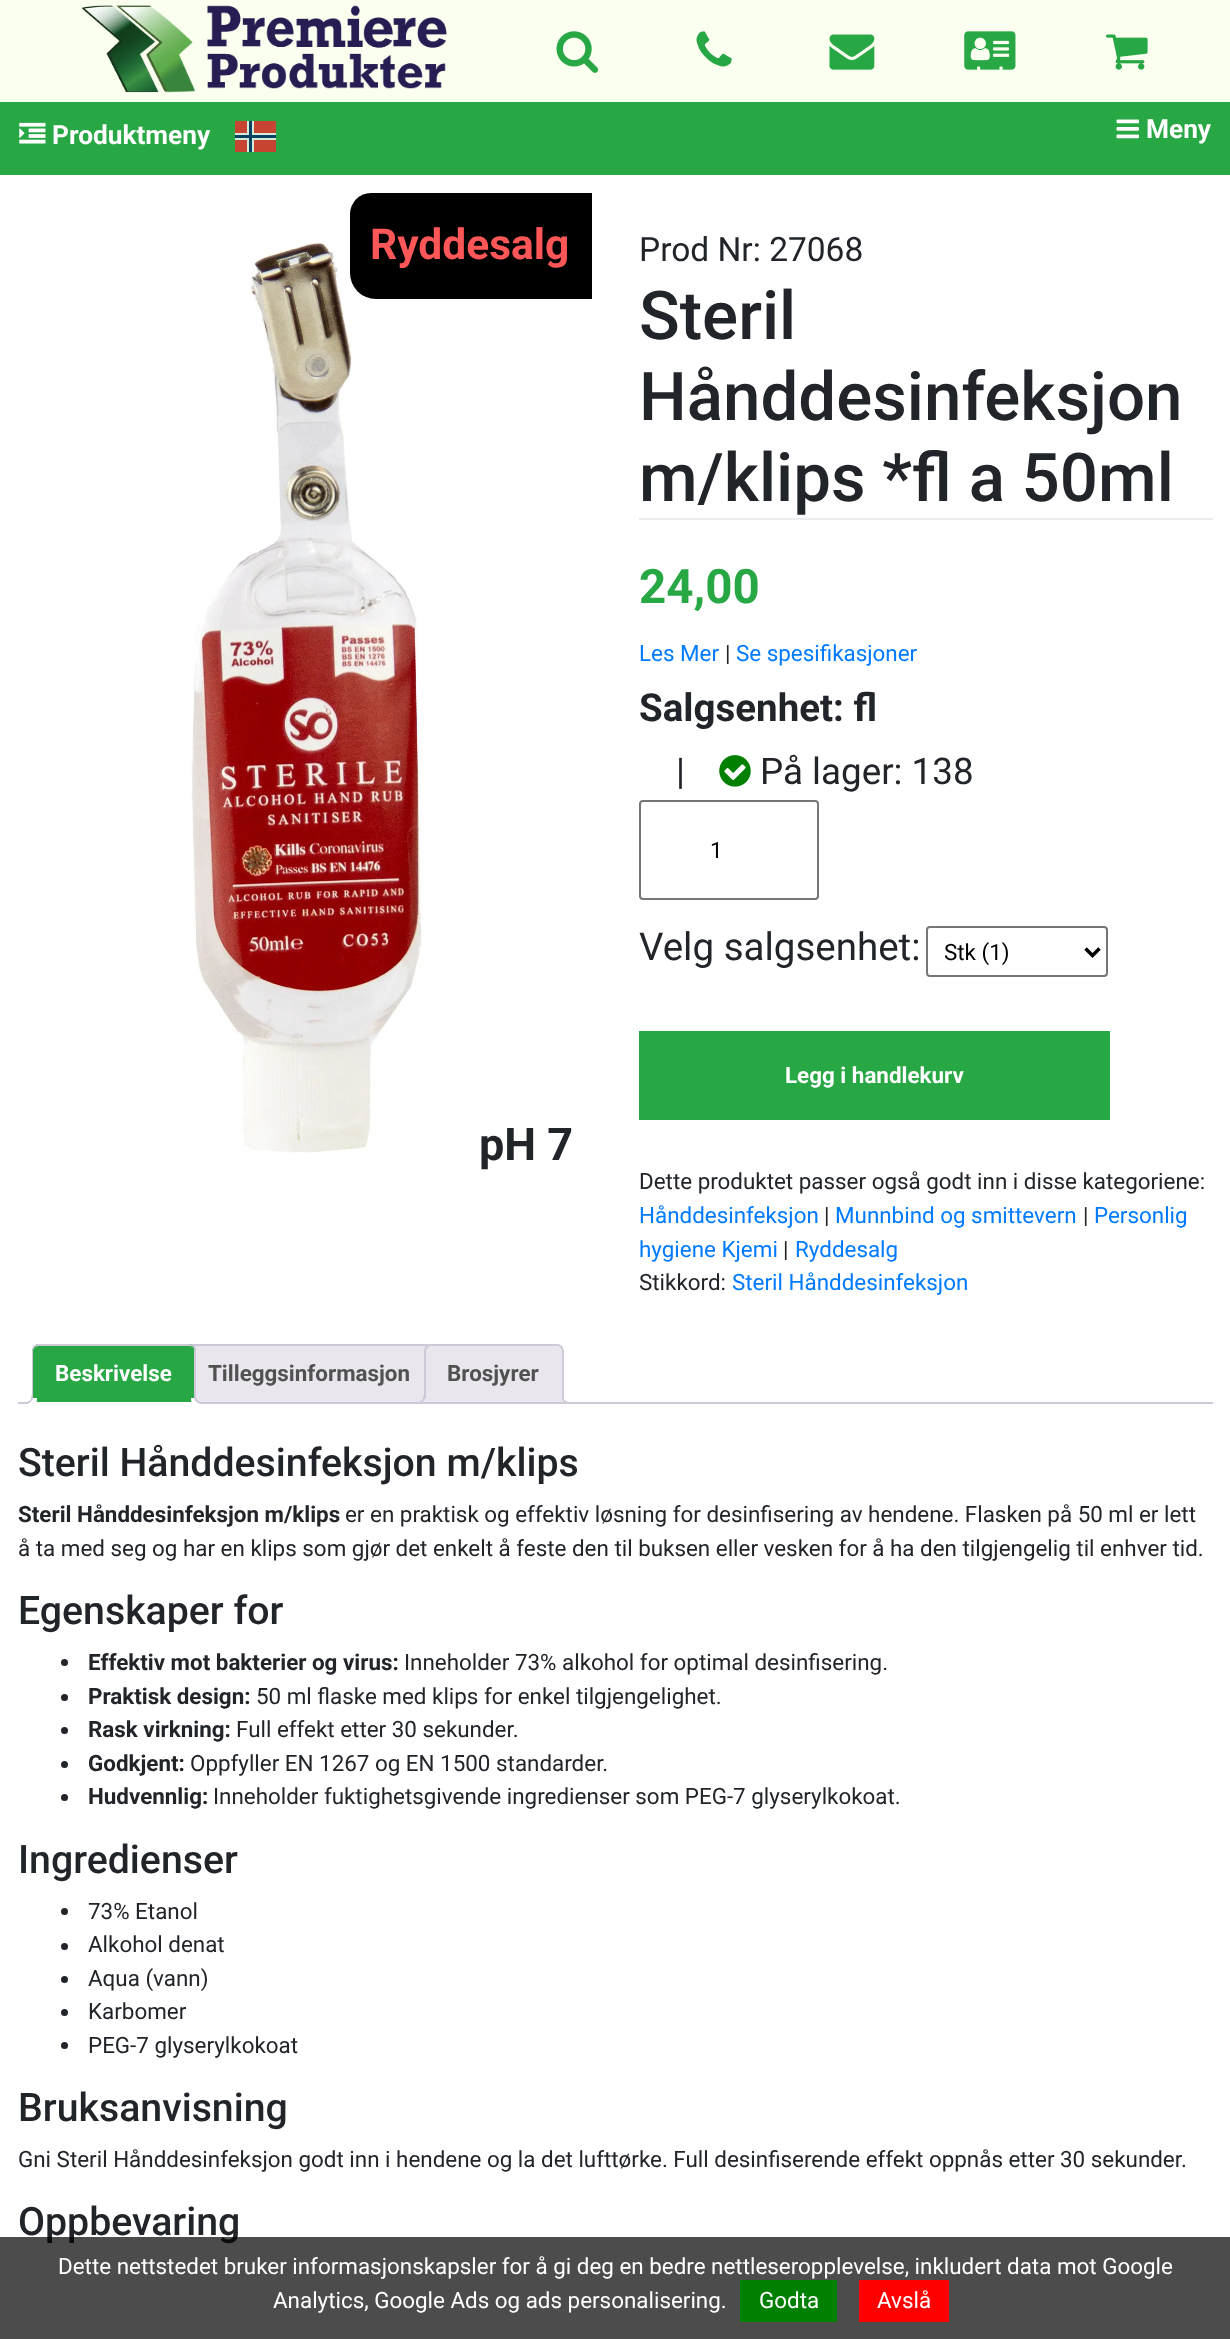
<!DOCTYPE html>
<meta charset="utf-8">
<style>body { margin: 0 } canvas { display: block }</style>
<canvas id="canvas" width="1230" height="2339"></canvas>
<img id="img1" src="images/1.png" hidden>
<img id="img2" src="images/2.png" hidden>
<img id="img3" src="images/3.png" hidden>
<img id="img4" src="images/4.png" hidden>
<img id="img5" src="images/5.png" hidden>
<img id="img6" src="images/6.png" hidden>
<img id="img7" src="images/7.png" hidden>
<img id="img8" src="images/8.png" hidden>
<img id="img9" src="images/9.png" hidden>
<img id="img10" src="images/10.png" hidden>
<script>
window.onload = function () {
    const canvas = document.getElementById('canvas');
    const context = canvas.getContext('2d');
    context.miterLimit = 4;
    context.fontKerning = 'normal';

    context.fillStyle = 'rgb(255, 255, 255)';
    context.fillRect(0, 0, 1230, 2339);
    context.fillStyle = 'rgb(251, 255, 240)';
    context.fillRect(0, 0, 1230, 102);
    context.drawImage(document.getElementById('img1'), 81, 5, 366, 88);
    context.drawImage(document.getElementById('img2'), 556, 31, 43, 42);
    context.drawImage(document.getElementById('img3'), 696, 31, 36, 36);
    context.drawImage(document.getElementById('img4'), 829, 34, 46, 36);
    context.drawImage(document.getElementById('img5'), 964, 31, 52, 39);
    context.drawImage(document.getElementById('img6'), 1106, 34, 42, 36);
    context.fillStyle = 'rgb(40, 167, 69)';
    context.fillRect(0, 102, 1230, 73);
    context.drawImage(document.getElementById('img7'), 19, 122, 27, 22);
    context.fillStyle = 'rgb(199, 68, 50)';
    context.fillRect(235, 121, 41, 31);
    context.fillStyle = 'rgb(212, 237, 218)';
    context.fillRect(247, 121, 7, 31);
    context.fillRect(235, 133, 41, 7);
    context.fillStyle = 'rgb(8, 65, 97)';
    context.fillRect(249, 121, 3, 31);
    context.fillRect(235, 135, 41, 3);
    context.drawImage(document.getElementById('img8'), 1116, 119, 23, 20);
    context.drawImage(document.getElementById('img9'), 191, 242, 231, 911);
    context.fillStyle = 'rgb(0, 0, 0)';
    context.beginPath();
    context.roundRect(350, 193, 242, 106, [21, 0, 0, 26]);
    context.fill();
    context.fillStyle = 'rgb(234, 236, 239)';
    context.fillRect(639, 518, 574, 2);
    context.drawImage(document.getElementById('img10'), 719, 755, 32, 32);
    context.beginPath();
    context.roundRect(640, 801, 178, 98, 3);
    context.strokeStyle = 'rgb(118, 118, 118)';
    context.lineWidth = 2;
    context.stroke();
    context.beginPath();
    context.roundRect(927, 927, 180, 49, 3);
    context.stroke();
    context.beginPath();
    context.moveTo(1085.5, 948.5);
    context.lineTo(1092.5, 955.5);
    context.lineTo(1099.5, 948.5);
    context.strokeStyle = 'rgb(0, 0, 0)';
    context.lineWidth = 3.5;
    context.stroke();
    context.fillStyle = 'rgb(40, 167, 69)';
    context.fillRect(639, 1031, 471, 89);
    context.fillStyle = 'rgb(233, 230, 237)';
    context.beginPath();
    context.roundRect(185, 1345, 248, 58, [6, 6, 0, 0]);
    context.fill();
    context.strokeStyle = 'rgb(207, 200, 216)';
    context.lineWidth = 2;
    context.stroke();
    context.beginPath();
    context.roundRect(425, 1345, 138, 58, [6, 6, 0, 0]);
    context.fill();
    context.stroke();
    context.save();
    context.beginPath();
    context.rect(18, 1344, 1195, 60);
    context.clip();
    context.beginPath();
    context.moveTo(420, 1403.5);
    context.lineTo(420, 1407);
    context.bezierCurveTo(426.5, 1407, 429, 1404.5, 429, 1398);
    context.lineTo(425, 1398);
    context.bezierCurveTo(424.5, 1400.5, 422.5, 1402.5, 420, 1403.5);
    context.closePath();
    context.fill();
    context.restore();
    context.fillStyle = 'rgb(207, 200, 216)';
    context.beginPath();
    context.moveTo(416.5, 1395);
    context.lineTo(425, 1395);
    context.bezierCurveTo(425, 1401, 422.5, 1403.5, 416.5, 1403.5);
    context.closePath();
    context.moveTo(416.5, 1395);
    context.lineTo(423.5, 1395);
    context.bezierCurveTo(423.5, 1400, 421.5, 1402, 416.5, 1402);
    context.closePath();
    context.fill('evenodd');
    context.save();
    context.beginPath();
    context.rect(18, 1344, 1195, 60);
    context.clip();
    context.fillStyle = 'rgb(233, 230, 237)';
    context.beginPath();
    context.moveTo(558, 1398);
    context.bezierCurveTo(558, 1404.5, 560.5, 1407, 567, 1407);
    context.lineTo(567, 1403.5);
    context.bezierCurveTo(564.5, 1402.5, 562.5, 1400.5, 562, 1398);
    context.closePath();
    context.fill();
    context.restore();
    context.beginPath();
    context.moveTo(562, 1395);
    context.lineTo(570.5, 1395);
    context.lineTo(570.5, 1403.5);
    context.bezierCurveTo(566, 1403.5, 562, 1402, 562, 1396.5);
    context.closePath();
    context.moveTo(563.5, 1395);
    context.lineTo(570.5, 1395);
    context.lineTo(570.5, 1402);
    context.bezierCurveTo(567, 1402, 563.5, 1401, 563.5, 1396.5);
    context.closePath();
    context.fill('evenodd');
    context.fillRect(18, 1402, 1195, 2);
    context.fillStyle = 'rgb(40, 167, 69)';
    context.beginPath();
    context.roundRect(32, 1344, 164, 60, [7, 7, 0, 0]);
    context.fill();
    context.fillStyle = 'rgb(207, 200, 216)';
    context.beginPath();
    context.moveTo(38, 1344);
    context.bezierCurveTo(36, 1344, 35, 1345, 34, 1346);
    context.lineTo(35, 1347);
    context.lineTo(38, 1346);
    context.lineTo(189, 1346);
    context.bezierCurveTo(190, 1346, 192, 1346, 193, 1347);
    context.lineTo(194, 1346);
    context.bezierCurveTo(193, 1345, 191, 1344, 189, 1344);
    context.closePath();
    context.fill();
    context.beginPath();
    context.moveTo(196, 1404);
    context.lineTo(196, 1351);
    context.bezierCurveTo(196, 1349, 195, 1347, 194, 1346);
    context.lineTo(193, 1347);
    context.bezierCurveTo(194, 1348, 194, 1350, 194, 1351);
    context.lineTo(194, 1402);
    context.closePath();
    context.fill();
    context.fillStyle = 'rgb(255, 255, 255)';
    context.beginPath();
    context.moveTo(196, 1404);
    context.lineTo(32, 1404);
    context.lineTo(33, 1402);
    context.lineTo(194, 1402);
    context.closePath();
    context.fill();
    context.fillStyle = 'rgb(207, 200, 216)';
    context.beginPath();
    context.moveTo(34, 1346);
    context.bezierCurveTo(33, 1347, 32, 1349, 32, 1351);
    context.lineTo(32, 1403);
    context.lineTo(33, 1402);
    context.lineTo(33, 1350);
    context.lineTo(35, 1347);
    context.closePath();
    context.fill();
    context.save();
    context.beginPath();
    context.rect(18, 1344, 1195, 60);
    context.clip();
    context.fillStyle = 'rgb(255, 255, 255)';
    context.beginPath();
    context.moveTo(28, 1403.5);
    context.lineTo(28, 1407);
    context.bezierCurveTo(34.5, 1407, 37, 1404.5, 37, 1398);
    context.lineTo(33, 1398);
    context.bezierCurveTo(32.5, 1400.5, 30.5, 1402.5, 28, 1403.5);
    context.closePath();
    context.fill();
    context.restore();
    context.beginPath();
    context.moveTo(24.5, 1395);
    context.lineTo(33, 1395);
    context.bezierCurveTo(33, 1401, 30.5, 1403.5, 24.5, 1403.5);
    context.closePath();
    context.moveTo(24.5, 1395);
    context.lineTo(31.5, 1395);
    context.bezierCurveTo(31.5, 1400, 29.5, 1402, 24.5, 1402);
    context.closePath();
    context.fill('evenodd');
    context.save();
    context.beginPath();
    context.rect(18, 1344, 1195, 60);
    context.clip();
    context.fillStyle = 'rgb(255, 255, 255)';
    context.beginPath();
    context.moveTo(191, 1398);
    context.bezierCurveTo(191, 1404.5, 193.5, 1407, 200, 1407);
    context.lineTo(200, 1403.5);
    context.bezierCurveTo(197, 1403, 195, 1400.5, 194.5, 1398);
    context.closePath();
    context.fill();
    context.restore();
    context.beginPath();
    context.moveTo(194, 1395);
    context.lineTo(203, 1395);
    context.lineTo(203, 1403.5);
    context.bezierCurveTo(198.5, 1403.5, 194, 1402, 194, 1396.5);
    context.closePath();
    context.moveTo(196, 1395);
    context.lineTo(203, 1395);
    context.lineTo(203, 1402);
    context.bezierCurveTo(199.5, 1402, 196, 1401, 196, 1396.5);
    context.closePath();
    context.fill('evenodd');
    context.fillStyle = 'rgb(33, 37, 41)';
    context.beginPath();
    context.arc(64.5, 1662.5, 3.5, 0, 2 * Math.PI);
    context.fill();
    context.beginPath();
    context.arc(64.5, 1697.5, 3.5, 0, 2 * Math.PI);
    context.fill();
    context.beginPath();
    context.arc(64.5, 1730.5, 3.5, 0, 2 * Math.PI);
    context.fill();
    context.beginPath();
    context.arc(64.5, 1764.5, 3.5, 0, 2 * Math.PI);
    context.fill();
    context.beginPath();
    context.arc(64.5, 1797.5, 3.5, 0, 2 * Math.PI);
    context.fill();
    context.beginPath();
    context.arc(64.5, 1911.5, 3.5, 0, 2 * Math.PI);
    context.fill();
    context.beginPath();
    context.arc(64.5, 1946.5, 3.5, 0, 2 * Math.PI);
    context.fill();
    context.beginPath();
    context.arc(64.5, 1979.5, 3.5, 0, 2 * Math.PI);
    context.fill();
    context.beginPath();
    context.arc(64.5, 2012.5, 3.5, 0, 2 * Math.PI);
    context.fill();
    context.beginPath();
    context.arc(64.5, 2045.5, 3.5, 0, 2 * Math.PI);
    context.fill();
    context.font = 'bold 26.25px Roboto';
    context.fillStyle = 'rgb(255, 255, 255)';
    context.fillText('Produktmeny', 52, 144);
    context.fillText('Meny', 1146, 138);
    context.font = 'bold 42.5px Roboto';
    context.fillStyle = 'rgb(255, 86, 88)';
    context.fillText('Ryddesalg', 370, 259);
    context.font = 'bold 45px Roboto';
    context.fillStyle = 'rgb(33, 37, 41)';
    context.fillText('pH 7', 479, 1160);
    context.font = '33.5px Roboto';
    context.fillText('Prod Nr: 27068', 639, 261);
    context.font = '500 67.25px Roboto';
    context.fillText('Steril', 639, 339);
    context.fillText('Hånddesinfeksjon', 639, 420);
    context.fillText('m/klips *fl a 50ml', 639, 501);
    context.font = 'bold 47.5px Roboto';
    context.fillStyle = 'rgb(40, 167, 69)';
    context.fillText('24,00', 639, 603);
    context.font = '22.4px Roboto';
    context.fillStyle = 'rgb(0, 123, 255)';
    context.fillText('Les Mer', 639, 661);
    context.fillStyle = 'rgb(33, 37, 41)';
    context.fillText('|', 725, 661);
    context.fillStyle = 'rgb(0, 123, 255)';
    context.fillText('Se spesifikasjoner', 736, 661);
    context.font = 'bold 38.5px Roboto';
    context.fillStyle = 'rgb(33, 37, 41)';
    context.fillText('Salgsenhet: fl', 639, 721);
    context.font = '36.75px Roboto';
    context.fillText('|', 676, 784);
    context.fillText('På lager: 138', 760, 784);
    context.font = '22.4px Roboto';
    context.fillStyle = 'rgb(0, 0, 0)';
    context.fillText('1', 710, 858);
    context.font = '38.5px Roboto';
    context.fillStyle = 'rgb(33, 37, 41)';
    context.fillText('Velg salgsenhet:', 639, 960);
    context.font = '22.4px Roboto';
    context.fillStyle = 'rgb(0, 0, 0)';
    context.fillText('Stk (1)', 944, 960);
    context.font = 'bold 22.4px Roboto';
    context.fillStyle = 'rgb(255, 255, 255)';
    context.fillText('Legg i handlekurv', 785, 1083);
    context.font = '22.4px Roboto';
    context.fillStyle = 'rgb(33, 37, 41)';
    context.fillText('Dette produktet passer også godt inn i disse kategoriene:', 639, 1189);
    context.fillStyle = 'rgb(0, 123, 255)';
    context.fillText('Hånddesinfeksjon', 639, 1223);
    context.fillStyle = 'rgb(33, 37, 41)';
    context.fillText('|', 824, 1223);
    context.fillStyle = 'rgb(0, 123, 255)';
    context.fillText('Munnbind og smittevern', 835, 1223);
    context.fillStyle = 'rgb(33, 37, 41)';
    context.fillText('|', 1083, 1223);
    context.fillStyle = 'rgb(0, 123, 255)';
    context.fillText('Personlig', 1094, 1223);
    context.fillText('hygiene Kjemi', 639, 1257);
    context.fillStyle = 'rgb(33, 37, 41)';
    context.fillText('|', 783, 1257);
    context.fillStyle = 'rgb(0, 123, 255)';
    context.fillText('Ryddesalg', 795, 1257);
    context.fillStyle = 'rgb(33, 37, 41)';
    context.fillText('Stikkord:', 639, 1290);
    context.fillStyle = 'rgb(0, 123, 255)';
    context.fillText('Steril Hånddesinfeksjon', 732, 1290);
    context.font = 'bold 22.4px Roboto';
    context.fillStyle = 'rgb(255, 255, 255)';
    context.fillText('Beskrivelse', 55, 1381);
    context.fillStyle = 'rgb(81, 81, 81)';
    context.fillText('Tilleggsinformasjon', 208, 1381);
    context.fillText('Brosjyrer', 447, 1381);
    context.font = '500 39.25px Roboto';
    context.fillStyle = 'rgb(33, 37, 41)';
    context.fillText('Steril Hånddesinfeksjon m/klips', 18, 1476);
    context.font = 'bold 22.4px Roboto';
    context.fillText('Steril Hånddesinfeksjon m/klips', 18, 1522);
    context.font = '22.4px Roboto';
    context.fillText('er en praktisk og effektiv løsning for desinfisering av hendene. Flasken på 50 ml er lett', 345, 1522);
    context.fillText('å ta med seg og har en klips som gjør det enkelt å feste den til buksen eller vesken for å ha den tilgjengelig til enhver tid.', 18, 1556);
    context.font = '500 39.25px Roboto';
    context.fillText('Egenskaper for', 18, 1624);
    context.font = 'bold 22.4px Roboto';
    context.fillText('Effektiv mot bakterier og virus:', 88, 1670);
    context.font = '22.4px Roboto';
    context.fillText('Inneholder 73% alkohol for optimal desinfisering.', 404, 1670);
    context.font = 'bold 22.4px Roboto';
    context.fillText('Praktisk design:', 88, 1704);
    context.font = '22.4px Roboto';
    context.fillText('50 ml flaske med klips for enkel tilgjengelighet.', 256, 1704);
    context.font = 'bold 22.4px Roboto';
    context.fillText('Rask virkning:', 88, 1737);
    context.font = '22.4px Roboto';
    context.fillText('Full effekt etter 30 sekunder.', 236, 1737);
    context.font = 'bold 22.4px Roboto';
    context.fillText('Godkjent:', 88, 1771);
    context.font = '22.4px Roboto';
    context.fillText('Oppfyller EN 1267 og EN 1500 standarder.', 190, 1771);
    context.font = 'bold 22.4px Roboto';
    context.fillText('Hudvennlig:', 88, 1804);
    context.font = '22.4px Roboto';
    context.fillText('Inneholder fuktighetsgivende ingredienser som PEG-7 glyserylkokoat.', 213, 1804);
    context.font = '500 39.25px Roboto';
    context.fillText('Ingredienser', 18, 1873);
    context.font = '22.4px Roboto';
    context.fillText('73% Etanol', 88, 1919);
    context.fillText('Alkohol denat', 88, 1952);
    context.fillText('Aqua (vann)', 88, 1986);
    context.fillText('Karbomer', 88, 2019);
    context.fillText('PEG-7 glyserylkokoat', 88, 2053);
    context.font = '500 39.25px Roboto';
    context.fillText('Bruksanvisning', 18, 2121);
    context.font = '22.4px Roboto';
    context.fillText('Gni Steril Hånddesinfeksjon godt inn i hendene og la det lufttørke. Full desinfiserende effekt oppnås etter 30 sekunder.', 18, 2167);
    context.font = '500 39.25px Roboto';
    context.fillText('Oppbevaring', 18, 2235);
    context.fillStyle = 'rgba(0, 0, 0, 0.7)';
    context.fillRect(0, 2237, 1230, 102);
    context.font = '22.4px Roboto';
    context.fillStyle = 'rgb(255, 255, 255)';
    context.fillText('Dette nettstedet bruker informasjonskapsler for å gi deg en bedre nettleseropplevelse, inkludert data mot Google', 58, 2274);
    context.fillText('Analytics, Google Ads og ads personalisering.', 273, 2308);
    context.fillStyle = 'rgb(0, 128, 0)';
    context.fillRect(740, 2280, 97, 42);
    context.fillStyle = 'rgb(255, 255, 255)';
    context.fillText('Godta', 759, 2308);
    context.fillStyle = 'rgb(255, 0, 0)';
    context.fillRect(859, 2280, 90, 42);
    context.fillStyle = 'rgb(255, 255, 255)';
    context.fillText('Avslå', 877, 2308);
};
</script>
